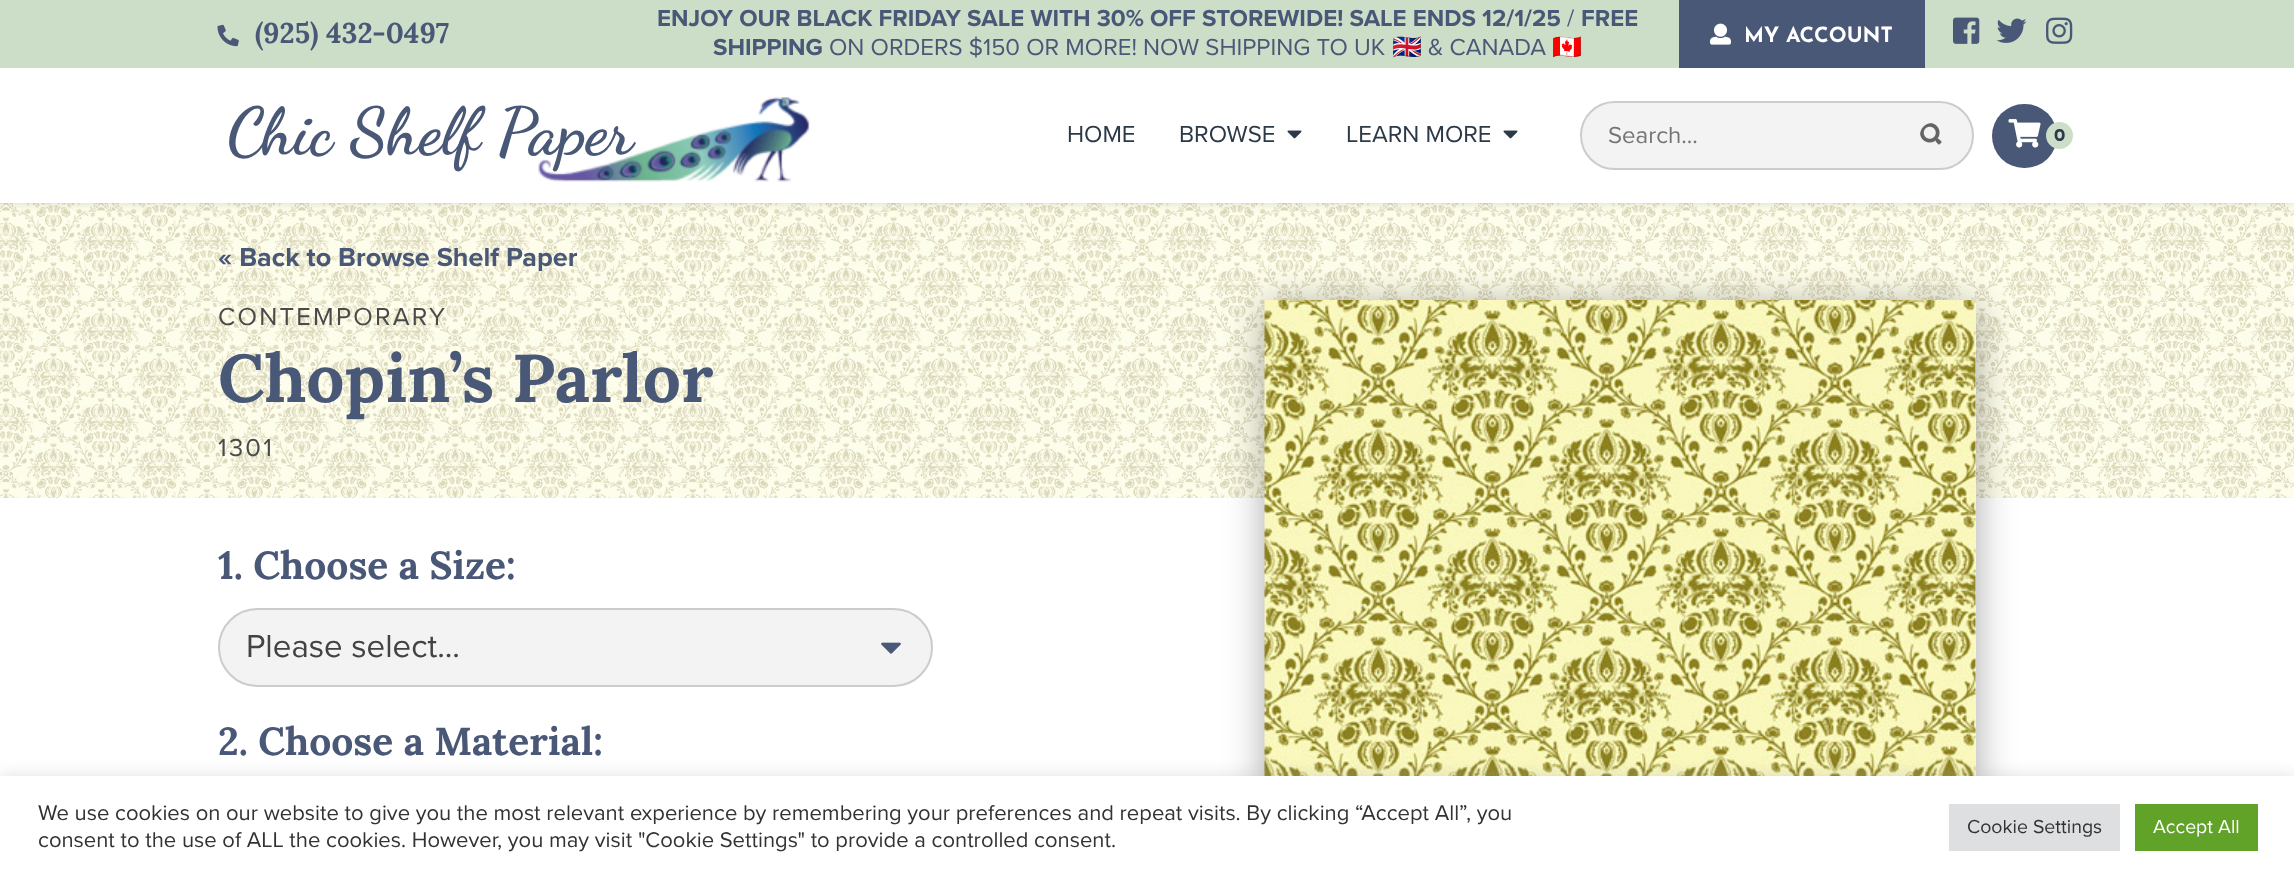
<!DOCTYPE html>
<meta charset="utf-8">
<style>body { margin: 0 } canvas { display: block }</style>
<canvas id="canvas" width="2294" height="878"></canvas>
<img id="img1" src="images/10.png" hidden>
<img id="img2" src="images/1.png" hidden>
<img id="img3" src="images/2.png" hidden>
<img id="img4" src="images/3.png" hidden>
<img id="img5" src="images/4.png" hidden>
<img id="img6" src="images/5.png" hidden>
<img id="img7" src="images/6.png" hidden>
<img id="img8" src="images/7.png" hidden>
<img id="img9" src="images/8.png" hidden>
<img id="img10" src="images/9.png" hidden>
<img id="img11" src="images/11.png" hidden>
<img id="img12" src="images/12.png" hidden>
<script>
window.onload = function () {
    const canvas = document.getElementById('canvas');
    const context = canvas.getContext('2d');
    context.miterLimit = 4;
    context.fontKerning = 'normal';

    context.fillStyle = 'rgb(255, 255, 255)';
    context.fillRect(0, 0, 2294, 878);
    context.drawImage(document.getElementById('img1'), 0, 203, 2294, 295);
    context.fillStyle = 'rgba(0, 0, 0, 0.25)';
    context.filter = 'blur(6px)';
    context.beginPath();
    context.rect(0, 65, 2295, 135);
    context.fill();
    context.filter = 'none';
    context.fillStyle = 'rgb(204, 221, 200)';
    context.fillRect(0, 0, 2294, 68);
    context.drawImage(document.getElementById('img2'), 217, 24, 22, 23);
    context.fillStyle = 'rgb(74, 88, 119)';
    context.fillRect(1679, 0, 246, 68);
    context.drawImage(document.getElementById('img3'), 1710, 23, 21, 22);
    context.drawImage(document.getElementById('img4'), 1953, 17, 27, 27);
    context.drawImage(document.getElementById('img5'), 1996, 18, 31, 25);
    context.drawImage(document.getElementById('img6'), 2046, 17, 27, 27);
    context.fillStyle = 'rgb(255, 255, 255)';
    context.fillRect(0, 68, 2294, 135);
    context.drawImage(document.getElementById('img7'), 538, 97, 272, 85);
    context.drawImage(document.getElementById('img8'), 1287, 130, 15, 9);
    context.drawImage(document.getElementById('img8'), 1503, 130, 15, 9);
    context.fillStyle = 'rgb(243, 243, 243)';
    context.beginPath();
    context.roundRect(1581, 102, 392, 67, 33.5);
    context.fill();
    context.strokeStyle = 'rgb(204, 204, 204)';
    context.lineWidth = 2;
    context.stroke();
    context.drawImage(document.getElementById('img9'), 1920, 123, 22, 22);
    context.fillStyle = 'rgb(74, 88, 119)';
    context.beginPath();
    context.roundRect(1992, 104, 65, 64, 32);
    context.fill();
    context.drawImage(document.getElementById('img10'), 2008, 119, 33, 29);
    context.fillStyle = 'rgb(204, 221, 200)';
    context.beginPath();
    context.arc(2059.5, 135.5, 13.5, 0, 2 * Math.PI);
    context.fill();
    context.fillStyle = 'rgba(0, 0, 0, 0.35)';
    context.filter = 'blur(19px)';
    context.beginPath();
    context.rect(1265, 306, 711, 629);
    context.fill();
    context.filter = 'none';
    context.fillStyle = 'rgb(243, 243, 243)';
    context.fillRect(1975, 300, 1, 476);
    context.drawImage(document.getElementById('img11'), 1264, 300, 712, 476);
    context.beginPath();
    context.roundRect(218, 608, 715, 79, 39.5);
    context.fill();
    context.drawImage(document.getElementById('img12'), 881, 642, 20, 12);
    context.beginPath();
    context.roundRect(219, 609, 713, 77, 38.5);
    context.stroke();
    context.fillStyle = 'rgba(172, 171, 171, 0.3)';
    context.filter = 'blur(7.5px)';
    context.beginPath();
    context.rect(0, 774, 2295, 104);
    context.fill();
    context.filter = 'none';
    context.fillStyle = 'rgb(255, 255, 255)';
    context.fillRect(0, 776, 2294, 102);
    context.fillStyle = 'rgb(222, 223, 224)';
    context.fillRect(1949, 804, 171, 47);
    context.fillStyle = 'rgb(97, 162, 41)';
    context.fillRect(2135, 804, 123, 47);
    context.font = 'bold 28.5px Lora';
    context.fillStyle = 'rgb(74, 88, 119)';
    context.fillText('(925) 432-0497', 255, 43);
    context.font = 'bold 24px Proxima Nova';
    context.fillText('ENJOY OUR BLACK FRIDAY SALE WITH 30% OFF STOREWIDE! SALE ENDS 12/1/25', 657, 26);
    context.font = '24px Proxima Nova';
    context.fillText('/', 1567, 26);
    context.font = 'bold 24px Proxima Nova';
    context.fillText('FREE', 1581, 26);
    context.fillText('SHIPPING', 713, 55);
    context.font = '24px Proxima Nova';
    context.fillText('ON ORDERS $150 OR MORE! NOW SHIPPING TO UK', 829, 55);
    context.font = '24px Noto Color Emoji';
    context.fillText('🇬🇧', 1392, 55);
    context.font = '24px Proxima Nova';
    context.fillText('& CANADA', 1428, 55);
    context.font = '24px Noto Color Emoji';
    context.fillText('🇨🇦', 1552, 55);
    context.font = '100 21px Josefin Sans';
    context.fillStyle = 'rgb(255, 255, 255)';
    context.fillText('MY ACCOUNT', 1744, 42);
    context.font = 'bold 66px Dancing Script';
    context.fillStyle = 'rgb(74, 88, 119)';
    context.fillText('Chic Shelf Paper', 227, 153);
    context.font = '24px Proxima Nova';
    context.fillStyle = 'rgb(44, 58, 71)';
    context.fillText('HOME', 1067, 142);
    context.fillText('BROWSE', 1179, 142);
    context.fillText('LEARN MORE', 1346, 142);
    context.fillStyle = 'rgb(117, 117, 117)';
    context.fillText('Search...', 1608, 143);
    context.font = '100 18px Josefin Sans';
    context.fillStyle = 'rgb(44, 58, 71)';
    context.fillText('0', 2054, 141);
    context.font = 'bold 27px Proxima Nova';
    context.fillStyle = 'rgb(74, 88, 119)';
    context.fillText('« Back to Browse Shelf Paper', 218, 266);
    context.letterSpacing = '2.25px';
    context.font = '25.5px Proxima Nova';
    context.fillStyle = 'rgb(74, 74, 74)';
    context.fillText('CONTEMPORARY', 218, 325);
    context.letterSpacing = '0px';
    context.font = 'bold 67.5px Lora';
    context.fillStyle = 'rgb(74, 88, 119)';
    context.fillText('Chopin’s Parlor', 218, 402);
    context.letterSpacing = '2.25px';
    context.font = '25.5px Proxima Nova';
    context.fillStyle = 'rgb(74, 74, 74)';
    context.fillText('1301', 218, 456);
    context.letterSpacing = '0px';
    context.font = 'bold 39px Lora';
    context.fillStyle = 'rgb(74, 88, 119)';
    context.fillText('1. Choose a Size:', 218, 579);
    context.font = '33px Proxima Nova';
    context.fillStyle = 'rgb(67, 67, 67)';
    context.fillText('Please select...', 246, 657);
    context.font = 'bold 39px Lora';
    context.fillStyle = 'rgb(74, 88, 119)';
    context.fillText('2. Choose a Material:', 218, 755);
    context.font = '22px Proxima Nova';
    context.fillStyle = 'rgb(51, 51, 51)';
    context.fillText('We use cookies on our website to give you the most relevant experience by remembering your preferences and repeat visits. By clicking “Accept All”, you', 38, 820);
    context.fillText('consent to the use of ALL the cookies. However, you may visit "Cookie Settings" to provide a controlled consent.', 38, 847);
    context.font = '19.5px Proxima Nova';
    context.fillText('Cookie Settings', 1967, 833);
    context.fillStyle = 'rgb(255, 255, 255)';
    context.fillText('Accept All', 2153, 833);
};
</script>
